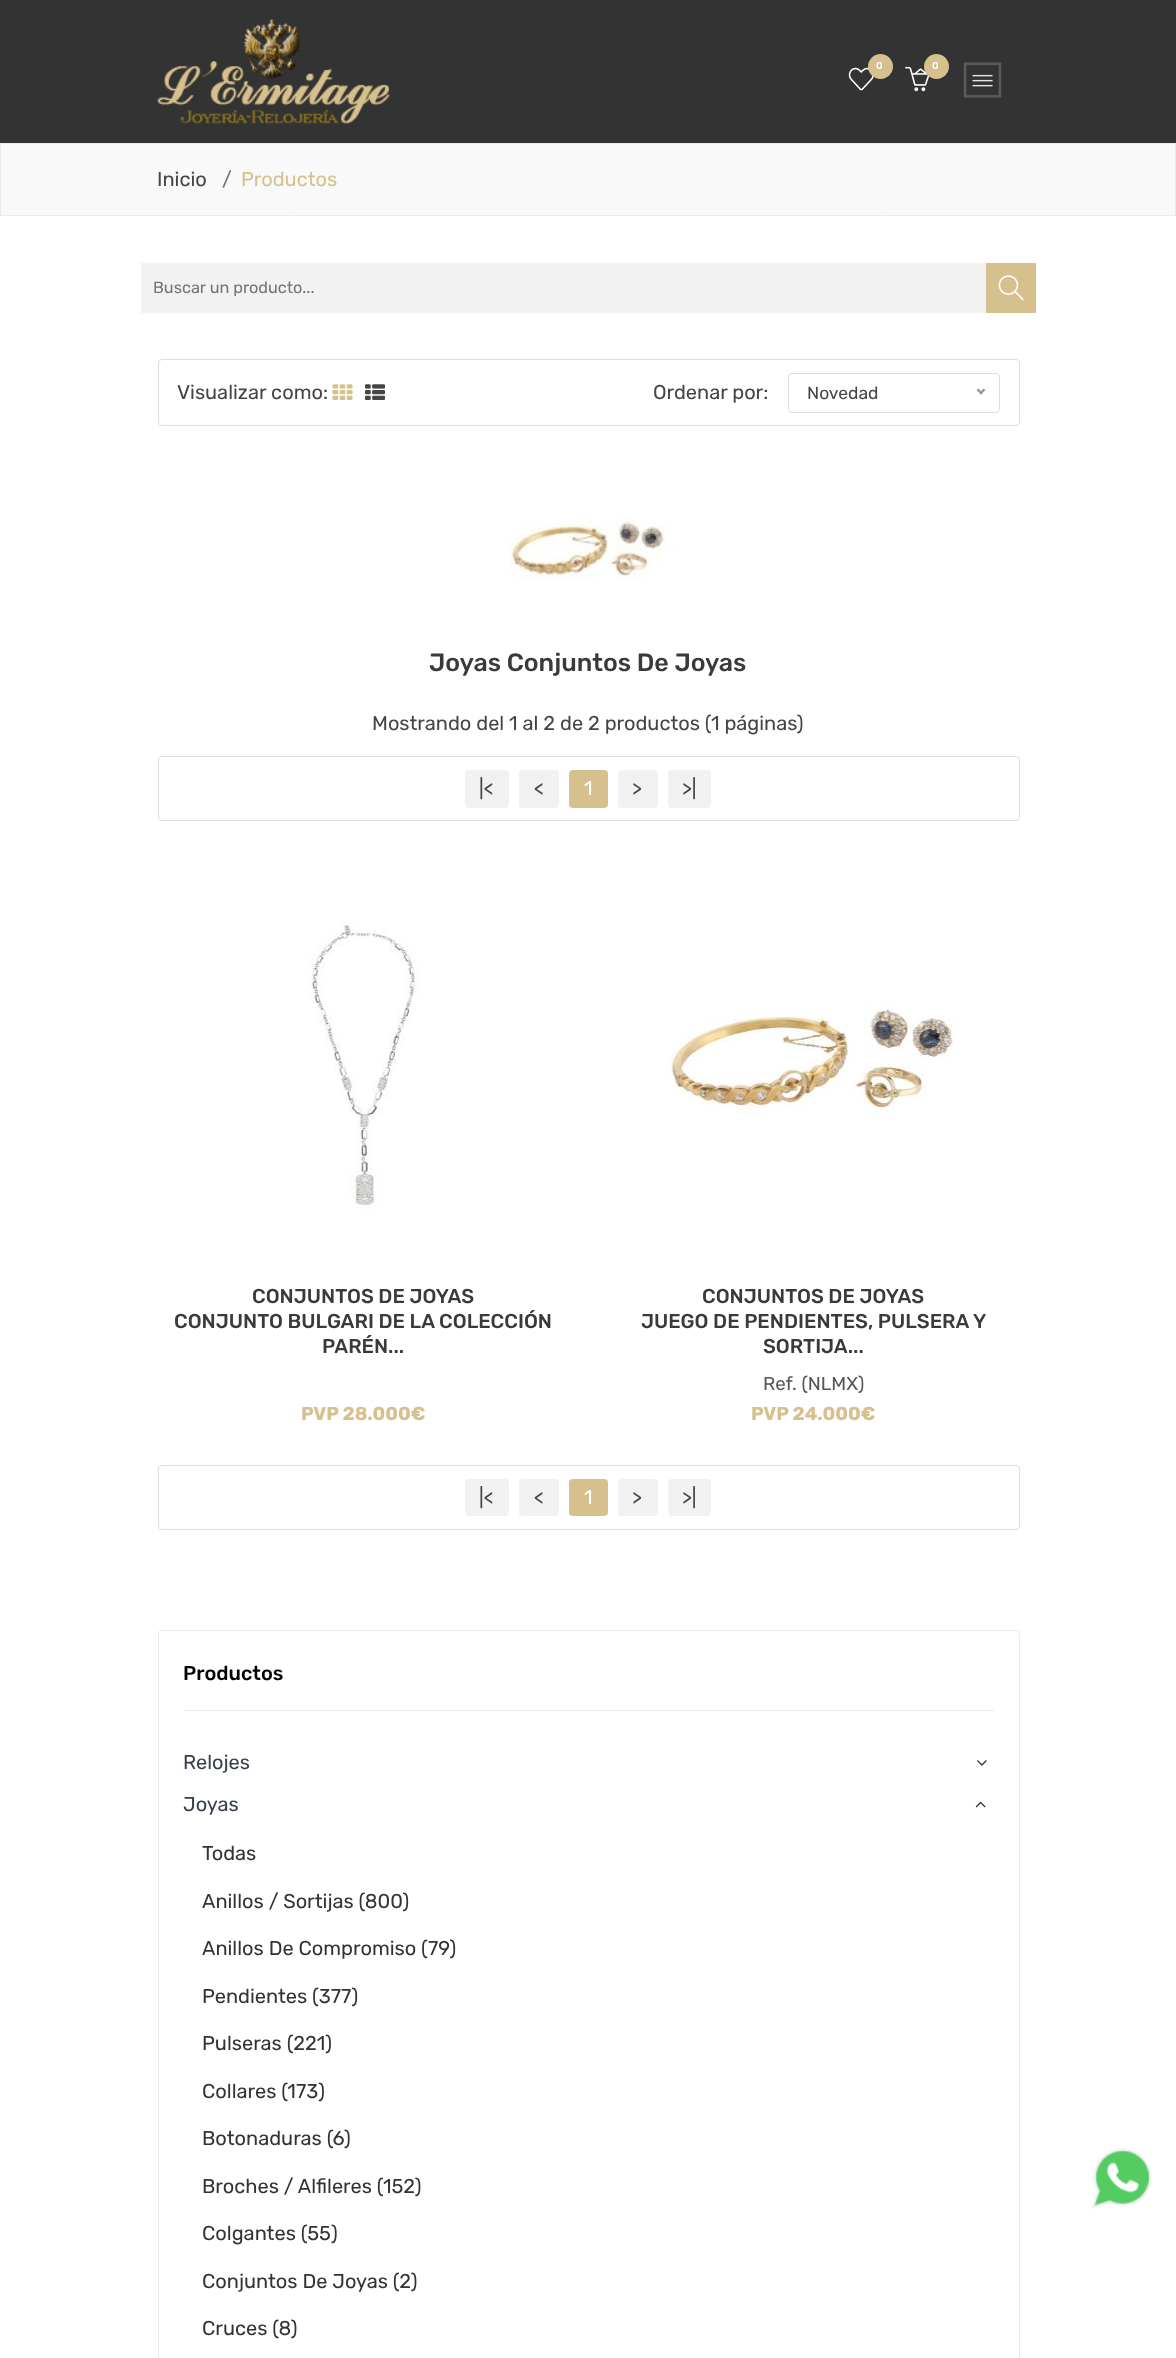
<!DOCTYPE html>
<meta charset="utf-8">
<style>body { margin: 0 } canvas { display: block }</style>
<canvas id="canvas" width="1176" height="2358"></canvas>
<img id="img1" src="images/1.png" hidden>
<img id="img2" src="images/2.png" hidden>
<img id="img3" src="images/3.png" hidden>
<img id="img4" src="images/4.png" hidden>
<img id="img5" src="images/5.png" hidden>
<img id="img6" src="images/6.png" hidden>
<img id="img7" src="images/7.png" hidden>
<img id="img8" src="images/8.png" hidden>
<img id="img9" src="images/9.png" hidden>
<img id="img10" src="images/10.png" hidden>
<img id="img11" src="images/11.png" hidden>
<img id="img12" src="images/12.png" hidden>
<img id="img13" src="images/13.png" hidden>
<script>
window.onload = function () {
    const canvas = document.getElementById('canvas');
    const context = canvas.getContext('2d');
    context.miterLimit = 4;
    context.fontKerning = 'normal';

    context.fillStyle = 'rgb(255, 255, 255)';
    context.fillRect(0, 0, 1176, 2358);
    context.fillStyle = 'rgb(51, 51, 51)';
    context.fillRect(0, 0, 1176, 143);
    context.drawImage(document.getElementById('img1'), 157, 18, 233, 106);
    context.drawImage(document.getElementById('img2'), 848, 67, 26, 24);
    context.fillStyle = 'rgb(214, 193, 142)';
    context.beginPath();
    context.arc(880.5, 66.5, 12.5, 0, 2 * Math.PI);
    context.fill();
    context.drawImage(document.getElementById('img3'), 905, 66, 25, 26);
    context.beginPath();
    context.arc(936.5, 66.5, 12.5, 0, 2 * Math.PI);
    context.fill();
    context.drawImage(document.getElementById('img4'), 963, 62, 39, 36);
    context.fillStyle = 'rgb(249, 249, 249)';
    context.beginPath();
    context.rect(0.5, 143.5, 1175, 72);
    context.fill();
    context.strokeStyle = 'rgb(235, 235, 235)';
    context.stroke();
    context.fillStyle = 'rgb(242, 242, 242)';
    context.fillRect(141, 263, 845, 50);
    context.fillStyle = 'rgb(214, 193, 142)';
    context.fillRect(986, 263, 50, 50);
    context.drawImage(document.getElementById('img5'), 998, 275, 26, 26);
    context.beginPath();
    context.roundRect(158.5, 359.5, 861, 66, 3.5);
    context.strokeStyle = 'rgb(221, 221, 221)';
    context.stroke();
    context.drawImage(document.getElementById('img6'), 332, 384, 21, 16);
    context.drawImage(document.getElementById('img7'), 365, 384, 20, 16);
    context.beginPath();
    context.roundRect(788.5, 373.5, 211, 39, 3.5);
    context.stroke();
    context.fillStyle = 'rgb(153, 153, 153)';
    context.beginPath();
    context.moveTo(983.5, 388.5);
    context.lineTo(985.5, 390);
    context.lineTo(981, 394.5);
    context.lineTo(979, 393);
    context.closePath();
    context.fill();
    context.beginPath();
    context.moveTo(978.5, 388.5);
    context.lineTo(983, 393);
    context.lineTo(981, 394.5);
    context.lineTo(976.5, 390);
    context.closePath();
    context.fill();
    context.drawImage(document.getElementById('img8'), 509, 518, 166, 63);
    context.beginPath();
    context.roundRect(158.5, 756.5, 861, 64, 3.5);
    context.stroke();
    context.fillStyle = 'rgb(241, 241, 241)';
    context.beginPath();
    context.roundRect(465, 770, 44, 38, 4);
    context.fill();
    context.beginPath();
    context.roundRect(519, 770, 40, 38, 4);
    context.fill();
    context.fillStyle = 'rgb(214, 193, 142)';
    context.beginPath();
    context.roundRect(569, 770, 39, 38, 4);
    context.fill();
    context.fillStyle = 'rgb(241, 241, 241)';
    context.beginPath();
    context.roundRect(618, 770, 40, 38, 4);
    context.fill();
    context.beginPath();
    context.roundRect(668, 770, 43, 38, 4);
    context.fill();
    context.drawImage(document.getElementById('img9'), 309, 922, 112, 288);
    context.drawImage(document.getElementById('img10'), 670, 1003, 289, 111);
    context.beginPath();
    context.roundRect(158.5, 1465.5, 861, 64, 3.5);
    context.stroke();
    context.beginPath();
    context.roundRect(465, 1479, 44, 37, 4);
    context.fill();
    context.beginPath();
    context.roundRect(519, 1479, 40, 37, 4);
    context.fill();
    context.fillStyle = 'rgb(214, 193, 142)';
    context.beginPath();
    context.roundRect(569, 1479, 39, 37, 4);
    context.fill();
    context.fillStyle = 'rgb(241, 241, 241)';
    context.beginPath();
    context.roundRect(618, 1479, 40, 37, 4);
    context.fill();
    context.beginPath();
    context.roundRect(668, 1479, 43, 37, 4);
    context.fill();
    context.beginPath();
    context.roundRect(158.5, 1630.5, 861, 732, 3.5);
    context.strokeStyle = 'rgb(235, 235, 235)';
    context.stroke();
    context.fillStyle = 'rgb(235, 235, 235)';
    context.fillRect(184, 1710, 810, 1);
    context.drawImage(document.getElementById('img11'), 977, 1760, 10, 6);
    context.drawImage(document.getElementById('img12'), 975, 1801, 11, 7);
    context.drawImage(document.getElementById('img13'), 1091, 2148, 61, 61);
    context.font = '500 10px Rubik';
    context.fillStyle = 'rgb(255, 255, 255)';
    context.fillText('0', 876, 69);
    context.fillText('0', 932, 69);
    context.font = '20px Rubik';
    context.fillStyle = 'rgb(69, 69, 69)';
    context.fillText('Inicio', 157, 186);
    context.fillStyle = 'rgb(108, 117, 125)';
    context.fillText('/', 222, 186);
    context.fillStyle = 'rgb(214, 193, 142)';
    context.fillText('Productos', 241, 186);
    context.font = '16.25px Rubik';
    context.fillStyle = 'rgb(117, 117, 117)';
    context.fillText('Buscar un producto...', 153, 293);
    context.font = '20px Rubik';
    context.fillStyle = 'rgb(69, 69, 69)';
    context.fillText('Visualizar como:', 177, 399);
    context.fillText('Ordenar por:', 653, 399);
    context.font = '17.5px Rubik';
    context.fillText('Novedad', 807, 399);
    context.font = '500 25px Rubik';
    context.fillStyle = 'rgb(58, 58, 58)';
    context.fillText('Joyas Conjuntos De Joyas', 429, 671);
    context.font = '20px Rubik';
    context.fillStyle = 'rgb(69, 69, 69)';
    context.fillText('Mostrando del 1 al 2 de 2 productos (1 páginas)', 372, 730);
    context.fillText('|<', 479, 795);
    context.fillText('<', 534, 795);
    context.fillStyle = 'rgb(255, 255, 255)';
    context.fillText('1', 584, 795);
    context.fillStyle = 'rgb(69, 69, 69)';
    context.fillText('>', 632, 795);
    context.fillText('>|', 682, 795);
    context.font = '500 20px Rubik';
    context.fillStyle = 'rgb(58, 58, 58)';
    context.fillText('CONJUNTOS DE JOYAS', 252, 1303);
    context.fillText('CONJUNTO BULGARI DE LA COLECCIÓN', 174, 1328);
    context.fillText('PARÉN...', 322, 1353);
    context.font = 'bold 18.75px Rubik';
    context.fillStyle = 'rgb(214, 193, 142)';
    context.fillText('PVP 28.000€', 301, 1420);
    context.font = '500 20px Rubik';
    context.fillStyle = 'rgb(58, 58, 58)';
    context.fillText('CONJUNTOS DE JOYAS', 702, 1303);
    context.fillText('JUEGO DE PENDIENTES, PULSERA Y', 641, 1328);
    context.fillText('SORTIJA...', 763, 1353);
    context.font = '18.75px Rubik';
    context.fillStyle = 'rgb(85, 85, 85)';
    context.fillText('Ref. (NLMX)', 763, 1390);
    context.font = 'bold 18.75px Rubik';
    context.fillStyle = 'rgb(214, 193, 142)';
    context.fillText('PVP 24.000€', 751, 1420);
    context.font = '20px Rubik';
    context.fillStyle = 'rgb(69, 69, 69)';
    context.fillText('|<', 479, 1504);
    context.fillText('<', 534, 1504);
    context.fillStyle = 'rgb(255, 255, 255)';
    context.fillText('1', 584, 1504);
    context.fillStyle = 'rgb(69, 69, 69)';
    context.fillText('>', 632, 1504);
    context.fillText('>|', 682, 1504);
    context.font = '500 20px Rubik';
    context.fillStyle = 'rgb(0, 0, 0)';
    context.fillText('Productos', 183, 1680);
    context.font = '20px Rubik';
    context.fillStyle = 'rgb(54, 63, 77)';
    context.fillText('Relojes', 183, 1769);
    context.fillText('Joyas', 183, 1811);
    context.fillStyle = 'rgb(51, 51, 51)';
    context.fillText('Todas', 202, 1860);
    context.fillText('Anillos / Sortijas (800)', 202, 1908);
    context.fillText('Anillos De Compromiso (79)', 202, 1955);
    context.fillText('Pendientes (377)', 202, 2003);
    context.fillText('Pulseras (221)', 202, 2050);
    context.fillText('Collares (173)', 202, 2098);
    context.fillText('Botonaduras (6)', 202, 2145);
    context.fillText('Broches / Alfileres (152)', 202, 2193);
    context.fillText('Colgantes (55)', 202, 2240);
    context.fillText('Conjuntos De Joyas (2)', 202, 2288);
    context.fillText('Cruces (8)', 202, 2335);
};
</script>
